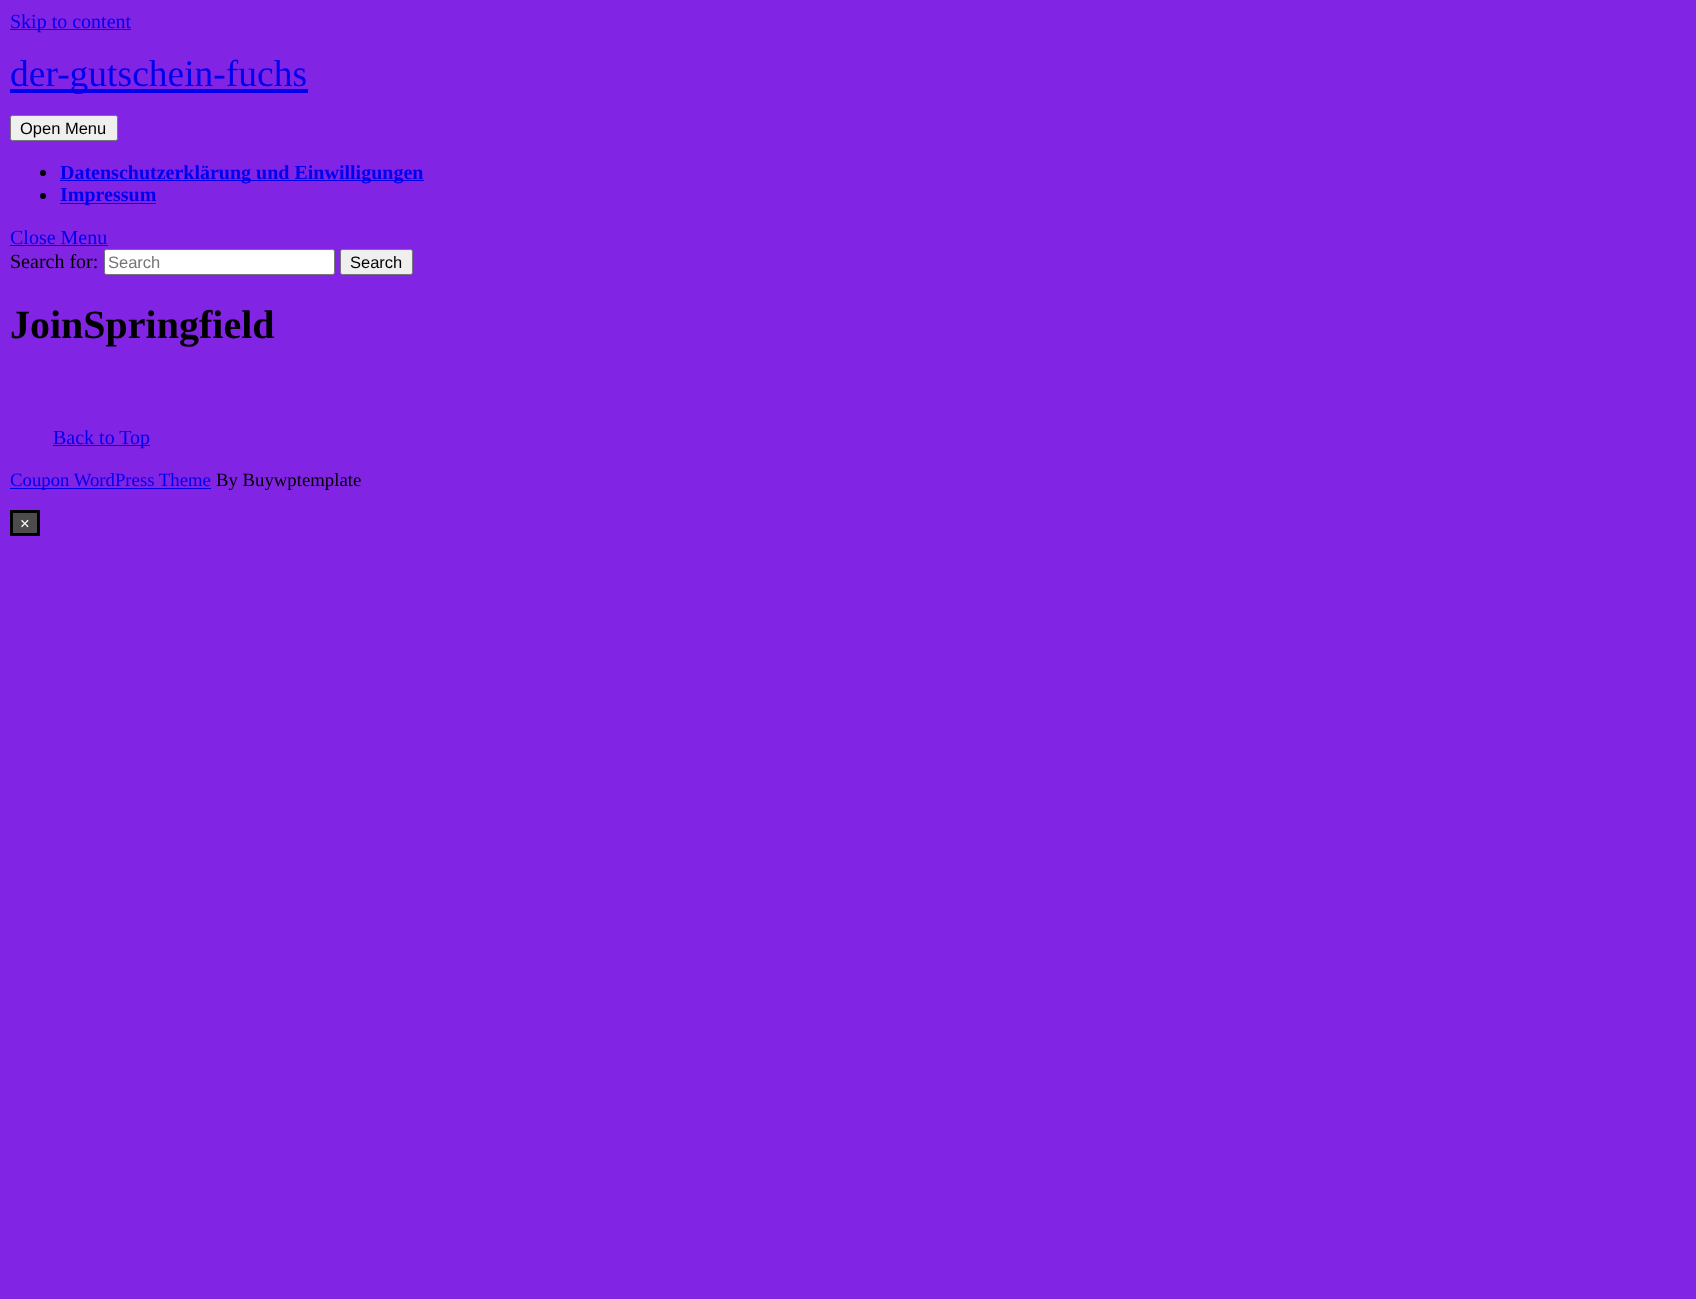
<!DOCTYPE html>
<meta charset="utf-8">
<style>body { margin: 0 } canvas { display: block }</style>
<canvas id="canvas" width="1696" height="1299"></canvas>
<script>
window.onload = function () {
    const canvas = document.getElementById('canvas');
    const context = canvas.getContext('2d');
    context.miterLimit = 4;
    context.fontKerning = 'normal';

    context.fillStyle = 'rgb(130, 36, 227)';
    context.fillRect(0, 0, 1696, 1299);
    context.fillStyle = 'rgb(0, 0, 238)';
    context.fillRect(10, 29, 121, 1);
    context.fillRect(10, 89, 298, 4);
    context.fillStyle = 'rgb(239, 239, 239)';
    context.beginPath();
    context.roundRect(10.5, 115.5, 107, 25, 2);
    context.fill();
    context.strokeStyle = 'rgb(118, 118, 118)';
    context.stroke();
    context.fillStyle = 'rgb(0, 0, 0)';
    context.beginPath();
    context.arc(43, 173, 3, 0, 2 * Math.PI);
    context.fill();
    context.fillStyle = 'rgb(0, 0, 238)';
    context.fillRect(60, 180, 364, 1);
    context.fillStyle = 'rgb(0, 0, 0)';
    context.beginPath();
    context.arc(43, 196, 3, 0, 2 * Math.PI);
    context.fill();
    context.fillStyle = 'rgb(0, 0, 238)';
    context.fillRect(60, 203, 96, 1);
    context.fillRect(10, 245, 98, 1);
    context.fillStyle = 'rgb(255, 255, 255)';
    context.beginPath();
    context.roundRect(104.5, 249.5, 230, 25, 2);
    context.fill();
    context.stroke();
    context.fillStyle = 'rgb(239, 239, 239)';
    context.beginPath();
    context.roundRect(340.5, 249.5, 72, 25, 2);
    context.fill();
    context.stroke();
    context.fillStyle = 'rgb(0, 0, 238)';
    context.fillRect(53, 445, 97, 1);
    context.fillRect(10, 488, 201, 1);
    context.fillStyle = 'rgb(76, 76, 76)';
    context.beginPath();
    context.rect(11.5, 511.5, 27, 23);
    context.fill();
    context.strokeStyle = 'rgb(0, 0, 0)';
    context.lineWidth = 3;
    context.stroke();
    context.font = '20px Liberation Serif';
    context.fillStyle = 'rgb(0, 0, 238)';
    context.fillText('Skip to content', 10, 28);
    context.font = '37.5px Liberation Serif';
    context.fillText('der-gutschein-fuchs', 10, 86);
    context.font = '16.5px Liberation Sans';
    context.fillStyle = 'rgb(0, 0, 0)';
    context.fillText('Open Menu', 20, 134);
    context.font = 'bold 20px Liberation Serif';
    context.fillStyle = 'rgb(0, 0, 238)';
    context.fillText('Datenschutzerklärung und Einwilligungen', 60, 179);
    context.fillText('Impressum', 60, 201);
    context.font = '20px Liberation Serif';
    context.fillText('Close Menu', 10, 244);
    context.fillStyle = 'rgb(0, 0, 0)';
    context.fillText('Search for:', 10, 268);
    context.font = '16.5px Liberation Sans';
    context.fillStyle = 'rgb(117, 117, 117)';
    context.fillText('Search', 108, 268);
    context.fillStyle = 'rgb(0, 0, 0)';
    context.fillText('Search', 350, 268);
    context.font = 'bold 40px Liberation Serif';
    context.fillText('JoinSpringfield', 10, 338);
    context.font = '20px Liberation Serif';
    context.fillStyle = 'rgb(0, 0, 238)';
    context.fillText('Back to Top', 53, 444);
    context.font = '18.75px Liberation Serif';
    context.fillText('Coupon WordPress Theme', 10, 486);
    context.fillStyle = 'rgb(0, 0, 0)';
    context.fillText('By Buywptemplate', 216, 486);
    context.font = '16.5px Liberation Sans';
    context.fillStyle = 'rgb(255, 255, 255)';
    context.fillText('×', 20, 529);
};
</script>
